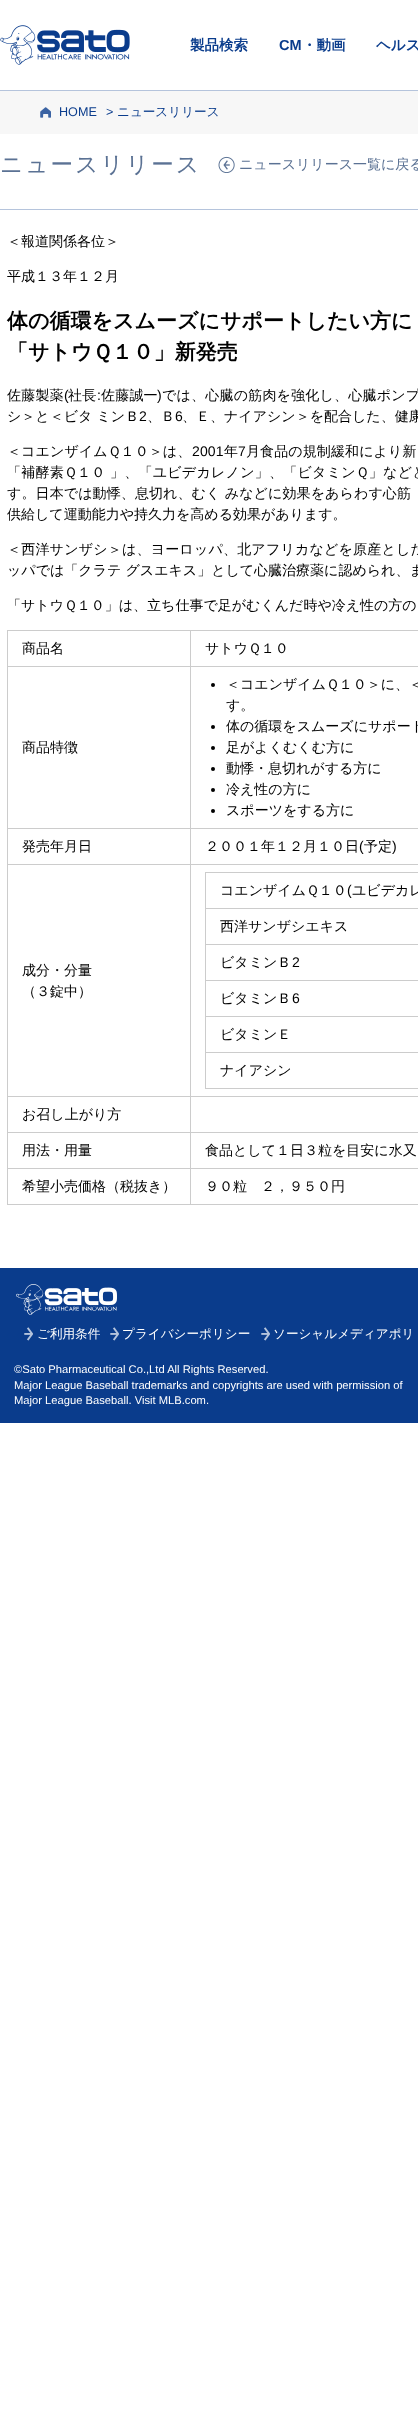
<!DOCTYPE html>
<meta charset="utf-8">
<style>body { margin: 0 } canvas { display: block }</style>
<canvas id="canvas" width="418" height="2418"></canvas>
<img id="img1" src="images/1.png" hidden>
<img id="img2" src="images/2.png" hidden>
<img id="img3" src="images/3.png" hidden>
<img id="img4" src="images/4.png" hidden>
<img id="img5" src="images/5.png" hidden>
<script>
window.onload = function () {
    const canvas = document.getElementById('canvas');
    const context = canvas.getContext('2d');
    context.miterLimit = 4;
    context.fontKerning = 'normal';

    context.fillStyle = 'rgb(255, 255, 255)';
    context.fillRect(0, 0, 418, 2418);
    context.drawImage(document.getElementById('img1'), 0, 25, 130, 40);
    context.fillStyle = 'rgb(247, 247, 247)';
    context.fillRect(0, 91, 418, 43);
    context.fillStyle = 'rgb(181, 196, 220)';
    context.fillRect(0, 90, 418, 1);
    context.drawImage(document.getElementById('img2'), 40, 107, 11, 11);
    context.drawImage(document.getElementById('img3'), 218, 156, 17, 17);
    context.fillRect(0, 209, 418, 1);
    context.fillStyle = 'rgb(204, 204, 204)';
    context.fillRect(7, 630, 411, 1);
    context.fillRect(7, 1204, 411, 1);
    context.fillRect(7, 630, 1, 575);
    context.fillRect(190, 666, 228, 1);
    context.fillRect(190, 828, 228, 1);
    context.fillRect(190, 864, 228, 1);
    context.fillRect(190, 1096, 228, 1);
    context.fillRect(190, 1132, 228, 1);
    context.fillRect(190, 1168, 228, 1);
    context.fillRect(190, 1168, 1, 37);
    context.fillRect(7, 1168, 184, 1);
    context.fillRect(190, 1132, 1, 37);
    context.fillRect(7, 1132, 184, 1);
    context.fillRect(190, 1096, 1, 37);
    context.fillRect(7, 1096, 184, 1);
    context.fillRect(190, 864, 1, 233);
    context.fillRect(7, 864, 184, 1);
    context.fillRect(190, 828, 1, 37);
    context.fillRect(7, 828, 184, 1);
    context.fillRect(190, 666, 1, 163);
    context.fillRect(7, 666, 184, 1);
    context.fillRect(190, 630, 1, 37);
    context.fillStyle = 'rgb(0, 0, 0)';
    context.beginPath();
    context.arc(213, 685, 2, 0, 2 * Math.PI);
    context.fill();
    context.beginPath();
    context.arc(213, 727, 2, 0, 2 * Math.PI);
    context.fill();
    context.beginPath();
    context.arc(213, 748, 2, 0, 2 * Math.PI);
    context.fill();
    context.beginPath();
    context.arc(213, 769, 2, 0, 2 * Math.PI);
    context.fill();
    context.beginPath();
    context.arc(213, 790, 2, 0, 2 * Math.PI);
    context.fill();
    context.beginPath();
    context.arc(213, 811, 2, 0, 2 * Math.PI);
    context.fill();
    context.fillStyle = 'rgb(204, 204, 204)';
    context.fillRect(205, 872, 213, 1);
    context.fillRect(205, 1088, 213, 1);
    context.fillRect(205, 872, 1, 217);
    context.fillRect(205, 908, 213, 1);
    context.fillRect(205, 944, 213, 1);
    context.fillRect(205, 980, 213, 1);
    context.fillRect(205, 1016, 213, 1);
    context.fillRect(205, 1052, 213, 1);
    context.fillStyle = 'rgb(10, 60, 140)';
    context.fillRect(0, 1268, 418, 155);
    context.drawImage(document.getElementById('img4'), 16, 1284, 101, 31);
    context.drawImage(document.getElementById('img5'), 24, 1327, 9, 14);
    context.drawImage(document.getElementById('img5'), 110, 1327, 9, 14);
    context.drawImage(document.getElementById('img5'), 261, 1327, 9, 14);
    context.font = 'bold 14.5px WenQuanYi Zen Hei';
    context.fillText('製品検索', 190, 50);
    context.font = 'bold 14.5px Liberation Sans';
    context.fillText('CM', 279, 50);
    context.font = 'bold 14.5px WenQuanYi Zen Hei';
    context.fillText('・動画', 302, 50);
    context.fillText('ヘルス', 376, 50);
    context.font = '12.6px Liberation Sans';
    context.fillText('HOME', 59, 116);
    context.fillText('>', 106, 116);
    context.font = '500 12.6px WenQuanYi Zen Hei';
    context.fillText('ニュースリリース', 117, 116);
    context.letterSpacing = '2.25px';
    context.font = '500 22.5px WenQuanYi Zen Hei';
    context.fillStyle = 'rgb(91, 114, 148)';
    context.fillText('ニュースリリース', 0, 172);
    context.letterSpacing = '0px';
    context.font = '500 14px WenQuanYi Zen Hei';
    context.fillText('ニュースリリース一覧に戻る', 239, 169);
    context.fillStyle = 'rgb(0, 0, 0)';
    context.fillText('＜報道関係各位＞', 7, 246);
    context.fillText('平成１３年１２月', 7, 281);
    context.font = 'bold 21px WenQuanYi Zen Hei';
    context.fillText('体の循環をスムーズにサポートしたい方に', 7, 328);
    context.fillText('「サトウＱ１０」新発売', 7, 359);
    context.letterSpacing = '0.2px';
    context.font = '500 14px WenQuanYi Zen Hei';
    context.fillText('佐藤製薬', 7, 400);
    context.font = '14px Liberation Sans';
    context.fillText('(', 64, 400);
    context.font = '500 14px WenQuanYi Zen Hei';
    context.fillText('社長', 68, 400);
    context.font = '14px Liberation Sans';
    context.fillText(':', 97, 400);
    context.font = '500 14px WenQuanYi Zen Hei';
    context.fillText('佐藤誠一', 101, 400);
    context.font = '14px Liberation Sans';
    context.fillText(')', 157, 400);
    context.font = '500 14px WenQuanYi Zen Hei';
    context.fillText('では、心臓の筋肉を強化し、心臓ポンプ', 162, 400);
    context.letterSpacing = '0px';
    context.fillText('シ＞と＜ビタ ミンＢ', 7, 421);
    context.font = '14px Liberation Sans';
    context.fillText('2', 139, 421);
    context.font = '500 14px WenQuanYi Zen Hei';
    context.fillText('、Ｂ', 147, 421);
    context.font = '14px Liberation Sans';
    context.fillText('6', 175, 421);
    context.font = '500 14px WenQuanYi Zen Hei';
    context.fillText('、Ｅ、ナイアシン＞を配合した、健康', 182, 421);
    context.letterSpacing = '0.1px';
    context.fillText('＜コエンザイムＱ１０＞は、', 7, 456);
    context.font = '14px Liberation Sans';
    context.fillText('2001', 192, 456);
    context.font = '500 14px WenQuanYi Zen Hei';
    context.fillText('年', 224, 456);
    context.font = '14px Liberation Sans';
    context.fillText('7', 238, 456);
    context.font = '500 14px WenQuanYi Zen Hei';
    context.fillText('月食品の規制緩和により新', 246, 456);
    context.letterSpacing = '0.25px';
    context.fillText('「補酵素Ｑ１０ 」、「ユビデカレノン」、「ビタミンＱ」などと', 7, 477);
    context.letterSpacing = '0.1px';
    context.fillText('す。日本では動悸、息切れ、むく みなどに効果をあらわす心筋', 7, 498);
    context.letterSpacing = '0px';
    context.fillText('供給して運動能力や持久力を高める効果があります。', 7, 519);
    context.letterSpacing = '0.2px';
    context.fillText('＜西洋サンザシ＞は、ヨーロッパ、北アフリカなどを原産とした', 7, 554);
    context.letterSpacing = '0px';
    context.fillText('ッパでは「クラテ グスエキス」として心臓治療薬に認められ、ま', 7, 575);
    context.fillText('「サトウＱ１０」は、立ち仕事で足がむくんだ時や冷え性の方の', 7, 610);
    context.fillText('商品名', 22, 653);
    context.fillText('サトウＱ１０', 205, 653);
    context.fillText('商品特徴', 22, 752);
    context.fillText('＜コエンザイムＱ１０＞に、＜', 226, 689);
    context.fillText('す。', 226, 710);
    context.fillText('体の循環をスムーズにサポート', 226, 731);
    context.fillText('足がよくむくむ方に', 226, 752);
    context.fillText('動悸・息切れがする方に', 226, 773);
    context.fillText('冷え性の方に', 226, 794);
    context.fillText('スポーツをする方に', 226, 815);
    context.fillText('発売年月日', 22, 851);
    context.fillText('２００１年１２月１０日', 205, 851);
    context.font = '14px Liberation Sans';
    context.fillText('(', 359, 851);
    context.font = '500 14px WenQuanYi Zen Hei';
    context.fillText('予定', 364, 851);
    context.font = '14px Liberation Sans';
    context.fillText(')', 392, 851);
    context.font = '500 14px WenQuanYi Zen Hei';
    context.fillText('成分・分量', 22, 975);
    context.fillText('（３錠中）', 22, 996);
    context.fillText('コエンザイムＱ１０', 220, 895);
    context.font = '14px Liberation Sans';
    context.fillText('(', 347, 895);
    context.font = '500 14px WenQuanYi Zen Hei';
    context.fillText('ユビデカレ', 352, 895);
    context.fillText('西洋サンザシエキス', 220, 931);
    context.fillText('ビタミンＢ', 220, 967);
    context.font = '14px Liberation Sans';
    context.fillText('2', 292, 967);
    context.font = '500 14px WenQuanYi Zen Hei';
    context.fillText('ビタミンＢ', 220, 1003);
    context.font = '14px Liberation Sans';
    context.fillText('6', 292, 1003);
    context.font = '500 14px WenQuanYi Zen Hei';
    context.fillText('ビタミンＥ', 220, 1039);
    context.fillText('ナイアシン', 220, 1075);
    context.fillText('お召し上がり方', 22, 1119);
    context.fillText('用法・用量', 22, 1155);
    context.fillText('食品として１日３粒を目安に水又', 205, 1155);
    context.fillText('希望小売価格（税抜き）', 22, 1191);
    context.fillText('９０粒　２，９５０円', 205, 1191);
    context.font = '500 12.6px WenQuanYi Zen Hei';
    context.fillStyle = 'rgb(255, 255, 255)';
    context.fillText('ご利用条件', 37, 1338);
    context.fillText('プライバシーポリシー', 122, 1338);
    context.fillText('ソーシャルメディアポリ', 273, 1338);
    context.font = '11.2px Liberation Sans';
    context.fillText('©Sato Pharmaceutical Co.,Ltd All Rights Reserved.', 14, 1373);
    context.fillText('Major League Baseball trademarks and copyrights are used with permission of', 14, 1389);
    context.fillText('Major League Baseball. Visit MLB.com.', 14, 1404);
};
</script>
